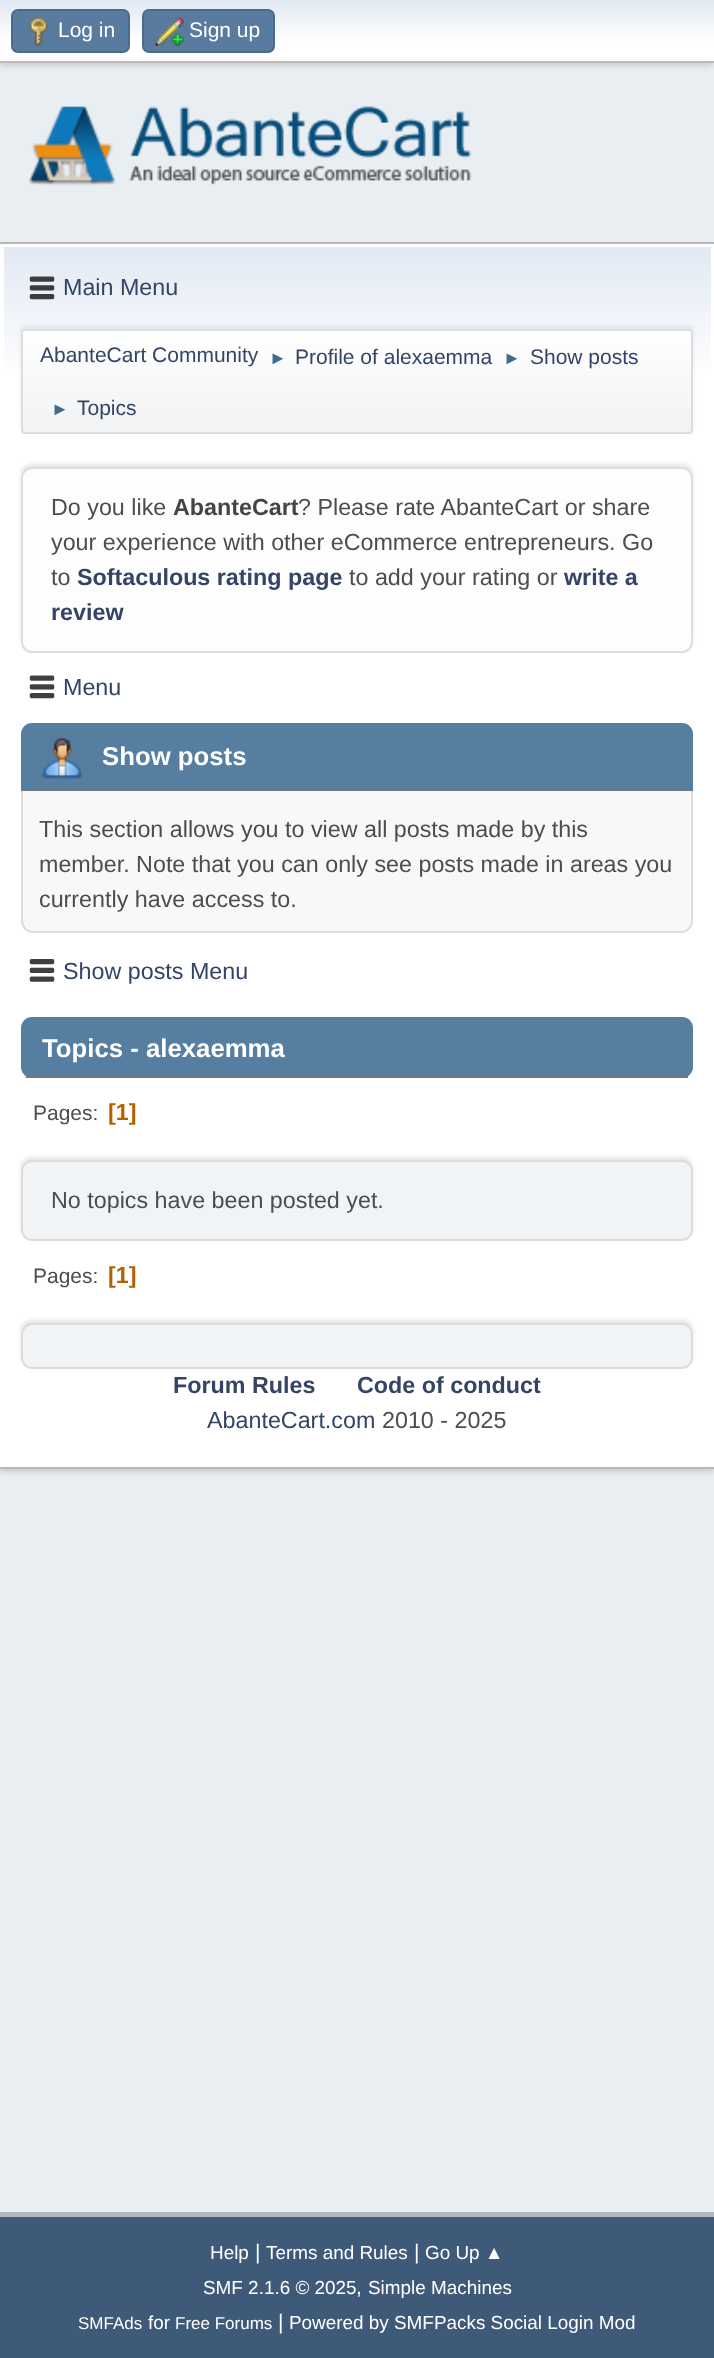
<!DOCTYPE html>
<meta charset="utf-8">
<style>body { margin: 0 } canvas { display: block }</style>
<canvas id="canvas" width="714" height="2358"></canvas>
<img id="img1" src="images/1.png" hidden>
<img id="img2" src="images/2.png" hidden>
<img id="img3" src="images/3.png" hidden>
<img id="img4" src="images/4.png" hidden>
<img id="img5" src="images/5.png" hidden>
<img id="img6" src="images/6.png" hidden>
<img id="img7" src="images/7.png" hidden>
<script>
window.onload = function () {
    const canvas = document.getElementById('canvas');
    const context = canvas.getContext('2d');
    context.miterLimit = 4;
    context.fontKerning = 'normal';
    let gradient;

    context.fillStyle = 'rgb(233, 238, 242)';
    context.fillRect(0, 0, 714, 2358);
    context.fillStyle = 'rgba(0, 0, 0, 0.16)';
    context.filter = 'blur(3.5px)';
    context.beginPath();
    context.rect(0, 2, 714, 63);
    context.fill();
    context.filter = 'none';
    gradient = context.createLinearGradient(357, 0, 357, 61);
    gradient.addColorStop(0, 'rgb(226, 233, 243)');
    gradient.addColorStop(0.7, 'rgb(255, 255, 255)');
    context.fillStyle = gradient;
    context.fillRect(0, 0, 714, 61);
    context.fillStyle = 'rgb(187, 187, 187)';
    context.fillRect(0, 61, 714, 2);
    context.fillStyle = 'rgb(89, 123, 159)';
    context.beginPath();
    context.roundRect(12, 10, 117, 42, 6);
    context.fill();
    context.strokeStyle = 'rgb(74, 107, 140)';
    context.lineWidth = 2;
    context.stroke();
    context.drawImage(document.getElementById('img1'), 29, 17, 19, 29);
    context.beginPath();
    context.roundRect(143, 10, 131, 42, 6);
    context.fill();
    context.stroke();
    context.drawImage(document.getElementById('img2'), 155, 17, 29, 29);
    context.drawImage(document.getElementById('img3'), 28, 106, 444, 80);
    context.fillStyle = 'rgba(0, 0, 0, 0.14)';
    context.filter = 'blur(2.5px)';
    context.beginPath();
    context.rect(0, 245, 714, 1227);
    context.fill();
    context.filter = 'none';
    context.fillStyle = 'rgb(255, 255, 255)';
    context.fillRect(0, 244, 714, 1223);
    context.fillStyle = 'rgb(184, 184, 184)';
    context.fillRect(0, 242, 714, 2);
    context.fillRect(0, 1467, 714, 2);
    gradient = context.createLinearGradient(357, 247, 357, 438);
    gradient.addColorStop(0, 'rgb(226, 233, 243)');
    gradient.addColorStop(0.7, 'rgb(255, 255, 255)');
    context.fillStyle = gradient;
    context.fillRect(4, 247, 707, 122);
    context.drawImage(document.getElementById('img4'), 29, 276, 26, 24);
    context.fillStyle = 'rgba(0, 0, 0, 0.08)';
    context.filter = 'blur(2px)';
    context.beginPath();
    context.roundRect(21, 326, 672, 105, 4);
    context.fill();
    context.filter = 'none';
    context.save();
    context.beginPath();
    context.roundRect(21, 329, 672, 105, 4);
    context.clip();
    gradient = context.createLinearGradient(357, 331, 357, 432);
    gradient.addColorStop(0, 'rgb(255, 255, 255)');
    gradient.addColorStop(0.95, 'rgb(241, 243, 245)');
    context.fillStyle = gradient;
    context.fillRect(21, 331, 672, 101);
    context.restore();
    context.beginPath();
    context.roundRect(22, 330, 670, 103, 3);
    context.strokeStyle = 'rgb(221, 221, 221)';
    context.stroke();
    context.fillStyle = 'rgba(0, 0, 0, 0.1)';
    context.filter = 'blur(2px)';
    context.beginPath();
    context.roundRect(21, 464, 672, 185, 11);
    context.fill();
    context.filter = 'none';
    context.fillStyle = 'rgb(253, 253, 253)';
    context.beginPath();
    context.roundRect(22, 468, 670, 184, 10);
    context.fill();
    context.stroke();
    context.drawImage(document.getElementById('img5'), 29, 675, 26, 24);
    context.fillStyle = 'rgb(85, 126, 160)';
    context.beginPath();
    context.roundRect(21, 723, 672, 68, [11, 11, 0, 0]);
    context.fill();
    context.fillStyle = 'rgb(119, 119, 119)';
    context.fillRect(21, 789, 672, 2);
    context.drawImage(document.getElementById('img6'), 42, 738, 41, 41);
    context.fillStyle = 'rgb(248, 248, 248)';
    context.beginPath();
    context.roundRect(21, 791, 672, 142, [0, 0, 12, 12]);
    context.fill();
    context.fillStyle = 'rgb(221, 221, 221)';
    context.beginPath();
    context.moveTo(21, 791);
    context.lineTo(693, 791);
    context.lineTo(693, 920);
    context.bezierCurveTo(693, 927, 688, 933, 681, 933);
    context.lineTo(33, 933);
    context.bezierCurveTo(26, 933, 21, 927, 21, 920);
    context.closePath();
    context.moveTo(23, 791);
    context.lineTo(691, 791);
    context.lineTo(691, 920);
    context.bezierCurveTo(691, 926, 687, 931, 681, 931);
    context.lineTo(33, 931);
    context.bezierCurveTo(27, 931, 23, 926, 23, 920);
    context.closePath();
    context.fill('evenodd');
    context.drawImage(document.getElementById('img7'), 29, 959, 26, 23);
    context.fillStyle = 'rgb(85, 126, 160)';
    context.beginPath();
    context.roundRect(21, 1017, 672, 61, 11);
    context.fill();
    context.fillStyle = 'rgb(119, 119, 119)';
    context.fillRect(26, 1076, 662, 2);
    context.fillStyle = 'rgba(0, 0, 0, 0.1)';
    context.filter = 'blur(2px)';
    context.beginPath();
    context.roundRect(21, 1157, 672, 80, 11);
    context.fill();
    context.filter = 'none';
    context.fillStyle = 'rgb(240, 244, 247)';
    context.beginPath();
    context.roundRect(22, 1161, 670, 79, 10);
    context.fill();
    context.stroke();
    context.fillStyle = 'rgba(0, 0, 0, 0.1)';
    context.filter = 'blur(2px)';
    context.beginPath();
    context.roundRect(21, 1320, 672, 45, 11);
    context.fill();
    context.filter = 'none';
    context.fillStyle = 'rgb(240, 244, 247)';
    context.beginPath();
    context.roundRect(22, 1324, 670, 44, 10);
    context.fill();
    context.stroke();
    context.fillStyle = 'rgb(62, 90, 120)';
    context.fillRect(0, 2217, 714, 141);
    context.fillStyle = 'rgb(178, 182, 189)';
    context.fillRect(0, 2212, 714, 5);
    context.font = '21px Liberation Sans';
    context.fillStyle = 'rgb(255, 255, 255)';
    context.fillText('Log in', 58, 37);
    context.fillText('Sign up', 189, 37);
    context.font = '23.3px Liberation Sans';
    context.fillStyle = 'rgb(51, 68, 102)';
    context.fillText('Main Menu', 63, 295);
    context.font = '21px Liberation Sans';
    context.fillText('AbanteCart Community', 40, 362);
    context.font = '18px Liberation Sans';
    context.fillStyle = 'rgb(63, 107, 140)';
    context.fillText('►', 269, 364);
    context.font = '21px Liberation Sans';
    context.fillStyle = 'rgb(51, 68, 102)';
    context.fillText('Profile of alexaemma', 295, 364);
    context.font = '18px Liberation Sans';
    context.fillStyle = 'rgb(63, 107, 140)';
    context.fillText('►', 503, 364);
    context.font = '21px Liberation Sans';
    context.fillStyle = 'rgb(51, 68, 102)';
    context.fillText('Show posts', 530, 364);
    context.font = '18px Liberation Sans';
    context.fillStyle = 'rgb(63, 107, 140)';
    context.fillText('►', 51, 415);
    context.font = '21px Liberation Sans';
    context.fillStyle = 'rgb(51, 68, 102)';
    context.fillText('Topics', 77, 415);
    context.font = '23.3px Liberation Sans';
    context.fillStyle = 'rgb(77, 77, 77)';
    context.fillText('Do you like', 51, 515);
    context.font = 'bold 23.3px Liberation Sans';
    context.fillStyle = 'rgb(68, 68, 68)';
    context.fillText('AbanteCart', 173, 515);
    context.font = '23.3px Liberation Sans';
    context.fillStyle = 'rgb(77, 77, 77)';
    context.fillText('? Please rate AbanteCart or share', 298, 515);
    context.fillText('your experience with other eCommerce entrepreneurs. Go', 51, 550);
    context.fillText('to', 51, 585);
    context.font = 'bold 23.3px Liberation Sans';
    context.fillStyle = 'rgb(51, 68, 102)';
    context.fillText('Softaculous rating page', 77, 585);
    context.font = '23.3px Liberation Sans';
    context.fillStyle = 'rgb(77, 77, 77)';
    context.fillText('to add your rating or', 349, 585);
    context.font = 'bold 23.3px Liberation Sans';
    context.fillStyle = 'rgb(51, 68, 102)';
    context.fillText('write a', 564, 585);
    context.fillText('review', 51, 620);
    context.font = '23.3px Liberation Sans';
    context.fillText('Menu', 63, 695);
    context.font = 'bold 25.75px Liberation Sans';
    context.fillStyle = 'rgb(255, 255, 255)';
    context.fillText('Show posts', 102, 765);
    context.font = '23.3px Liberation Sans';
    context.fillStyle = 'rgb(77, 77, 77)';
    context.fillText('This section allows you to view all posts made by this', 39, 837);
    context.fillText('member. Note that you can only see posts made in areas you', 39, 872);
    context.fillText('currently have access to.', 39, 907);
    context.fillStyle = 'rgb(51, 68, 102)';
    context.fillText('Show posts Menu', 63, 979);
    context.font = 'bold 25.75px Liberation Sans';
    context.fillStyle = 'rgb(255, 255, 255)';
    context.fillText('Topics - alexaemma', 42, 1057);
    context.font = '21px Liberation Sans';
    context.fillStyle = 'rgb(77, 77, 77)';
    context.fillText('Pages:', 33, 1120);
    context.font = 'bold 23.3px Liberation Sans';
    context.fillStyle = 'rgb(180, 97, 0)';
    context.fillText('[1]', 108, 1120);
    context.font = '23.3px Liberation Sans';
    context.fillStyle = 'rgb(77, 77, 77)';
    context.fillText('No topics have been posted yet.', 51, 1208);
    context.font = '21px Liberation Sans';
    context.fillText('Pages:', 33, 1283);
    context.font = 'bold 23.3px Liberation Sans';
    context.fillStyle = 'rgb(180, 97, 0)';
    context.fillText('[1]', 108, 1283);
    context.fillStyle = 'rgb(51, 68, 102)';
    context.fillText('Forum Rules', 173, 1393);
    context.fillText('Code of conduct', 357, 1393);
    context.font = '23.3px Liberation Sans';
    context.fillText('AbanteCart.com', 207, 1428);
    context.fillStyle = 'rgb(77, 77, 77)';
    context.fillText('2010 - 2025', 382, 1428);
    context.font = '18.9px Liberation Sans';
    context.fillStyle = 'rgb(255, 255, 255)';
    context.fillText('Help', 210, 2259);
    context.font = '21px Liberation Sans';
    context.fillText('|', 255, 2259);
    context.font = '18.9px Liberation Sans';
    context.fillText('Terms and Rules', 266, 2259);
    context.font = '21px Liberation Sans';
    context.fillText('|', 414, 2259);
    context.font = '18.9px Liberation Sans';
    context.fillText('Go Up ▲', 425, 2259);
    context.fillText('SMF 2.1.6 © 2025', 203, 2294);
    context.font = '21px Liberation Sans';
    context.fillText(',', 356, 2294);
    context.font = '18.9px Liberation Sans';
    context.fillText('Simple Machines', 368, 2294);
    context.font = '17px Liberation Sans';
    context.fillText('SMFAds', 78, 2329);
    context.font = '18.9px Liberation Sans';
    context.fillText('for', 148, 2329);
    context.font = '17px Liberation Sans';
    context.fillText('Free Forums', 175, 2329);
    context.font = '21px Liberation Sans';
    context.fillText('|', 278, 2329);
    context.font = '18.9px Liberation Sans';
    context.fillText('Powered by SMFPacks Social Login Mod', 289, 2329);
};
</script>
